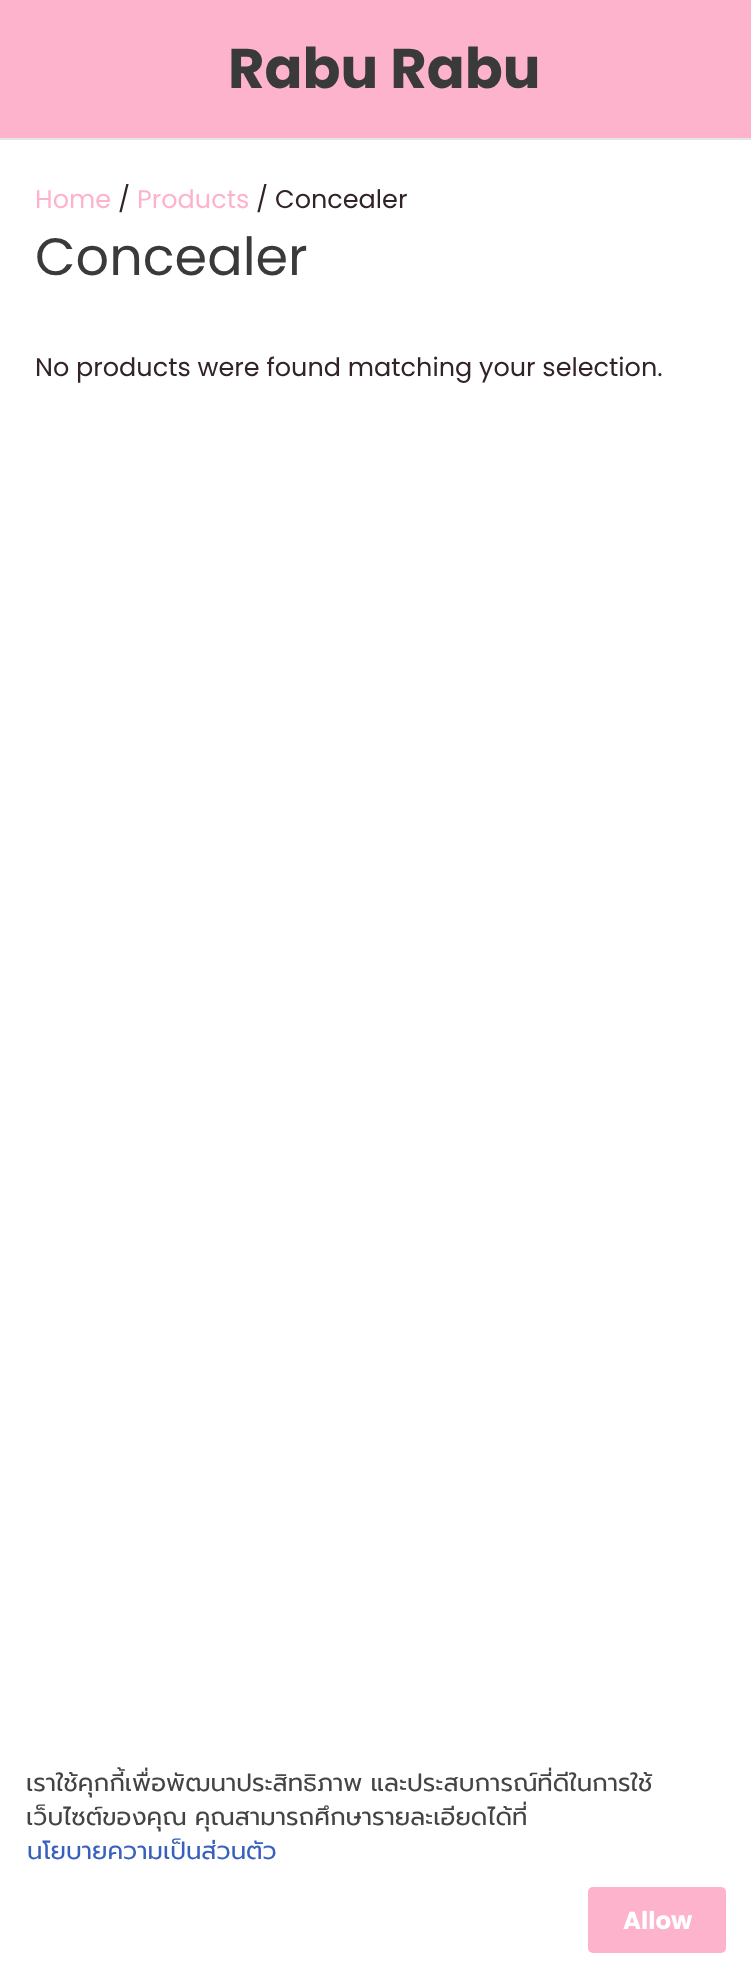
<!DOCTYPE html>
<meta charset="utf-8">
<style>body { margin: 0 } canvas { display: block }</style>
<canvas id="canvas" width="751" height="1978"></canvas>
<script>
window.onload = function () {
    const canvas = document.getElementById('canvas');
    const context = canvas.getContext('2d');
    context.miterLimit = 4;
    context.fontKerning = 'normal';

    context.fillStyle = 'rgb(255, 255, 255)';
    context.fillRect(0, 0, 751, 1978);
    context.fillStyle = 'rgb(254, 179, 205)';
    context.fillRect(0, 0, 751, 138);
    context.fillStyle = 'rgb(229, 229, 229)';
    context.fillRect(0, 138, 751, 2);
    context.fillStyle = 'rgb(254, 179, 205)';
    context.beginPath();
    context.roundRect(588, 1887, 138, 66, 5);
    context.fill();
    context.font = 'bold 56px Poppins';
    context.fillStyle = 'rgb(58, 58, 58)';
    context.fillText('Rabu Rabu', 228, 88);
    context.font = '25.5px Poppins';
    context.fillStyle = 'rgb(254, 179, 205)';
    context.fillText('Home', 35, 208);
    context.fillStyle = 'rgb(50, 35, 41)';
    context.fillText('/', 118, 208);
    context.fillStyle = 'rgb(254, 179, 205)';
    context.fillText('Products', 137, 208);
    context.fillStyle = 'rgb(50, 35, 41)';
    context.fillText('/ Concealer', 256, 208);
    context.font = '52.5px Poppins';
    context.fillStyle = 'rgb(58, 58, 58)';
    context.fillText('Concealer', 35, 275);
    context.font = '25.5px Poppins';
    context.fillStyle = 'rgb(50, 35, 41)';
    context.fillText('No products were found matching your selection.', 35, 376);
    context.wordSpacing = '-1px';
    context.font = '24.5px Prompt';
    context.fillStyle = 'rgb(68, 68, 68)';
    context.fillText('เราใช้คุกกี้เพื่อพัฒนาประสิทธิภาพ และประสบการณ์ที่ดีในการใช้', 26, 1791);
    context.fillText('เว็บไซต์ของคุณ คุณสามารถศึกษารายละเอียดได้ที่', 26, 1825);
    context.wordSpacing = '0px';
    context.fillStyle = 'rgb(56, 96, 190)';
    context.fillText('นโยบายความเป็นส่วนตัว', 27, 1859);
    context.font = 'bold 24.5px Poppins';
    context.fillStyle = 'rgb(255, 255, 255)';
    context.fillText('Allow', 623, 1929);
};
</script>
